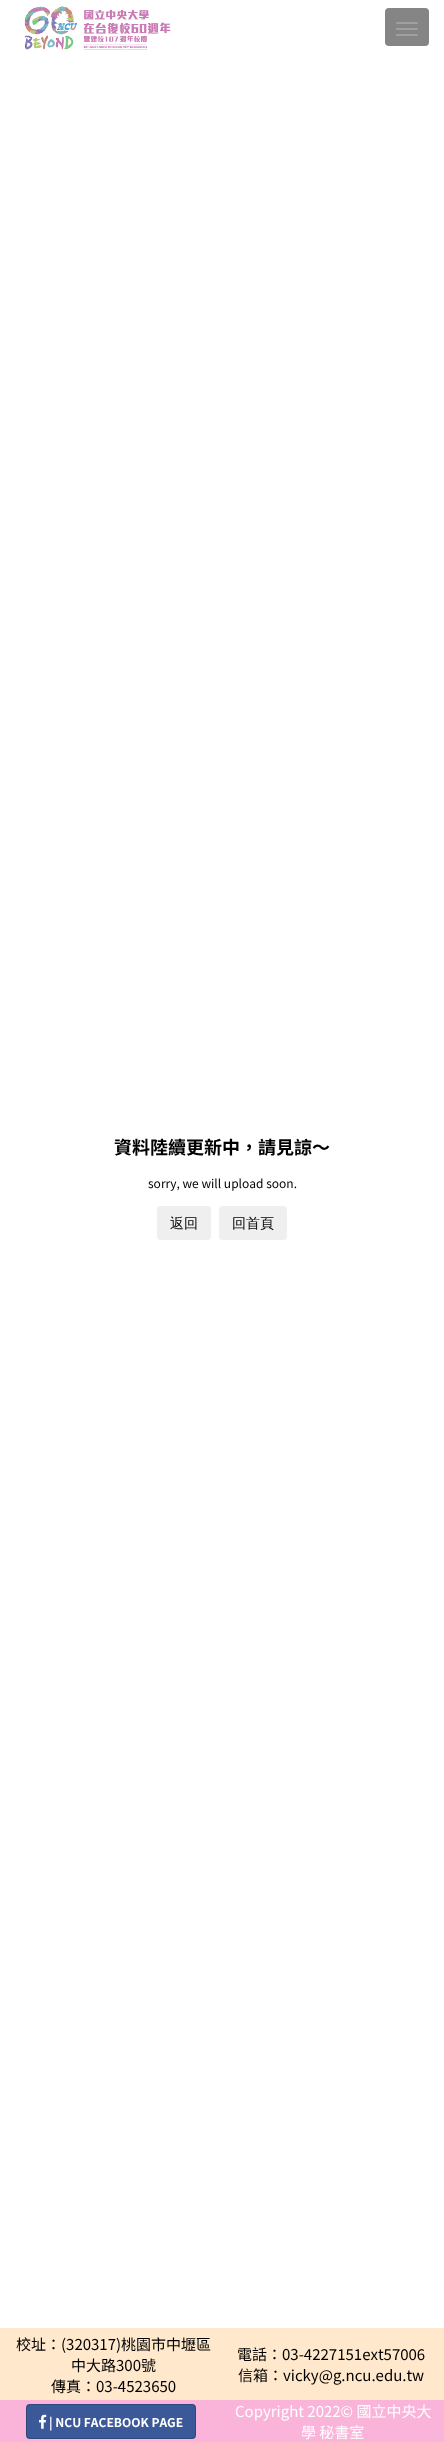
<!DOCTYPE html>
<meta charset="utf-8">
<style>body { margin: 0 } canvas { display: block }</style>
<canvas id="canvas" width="444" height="2442"></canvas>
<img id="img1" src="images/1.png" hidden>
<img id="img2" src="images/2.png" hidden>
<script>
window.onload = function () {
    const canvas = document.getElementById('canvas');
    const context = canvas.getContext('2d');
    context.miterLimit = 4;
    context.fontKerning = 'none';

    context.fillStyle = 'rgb(255, 255, 255)';
    context.fillRect(0, 0, 444, 2442);
    context.drawImage(document.getElementById('img1'), 24, 6, 147, 44);
    context.fillStyle = 'rgb(133, 133, 133)';
    context.beginPath();
    context.roundRect(385, 8, 44, 38, 4);
    context.fill();
    context.fillStyle = 'rgb(160, 160, 160)';
    context.beginPath();
    context.roundRect(396, 22, 22, 2, 1);
    context.fill();
    context.beginPath();
    context.roundRect(396, 28, 22, 2, 1);
    context.fill();
    context.beginPath();
    context.roundRect(396, 34, 22, 2, 1);
    context.fill();
    context.fillStyle = 'rgb(239, 239, 239)';
    context.beginPath();
    context.roundRect(157, 1206, 54, 34, 4);
    context.fill();
    context.beginPath();
    context.roundRect(219, 1206, 68, 34, 4);
    context.fill();
    context.fillStyle = 'rgb(255, 232, 204)';
    context.fillRect(0, 2328, 444, 72);
    context.fillStyle = 'rgb(250, 180, 217)';
    context.fillRect(0, 2400, 444, 42);
    context.fillStyle = 'rgb(59, 89, 152)';
    context.beginPath();
    context.roundRect(26, 2404, 170, 35, 4);
    context.fill();
    context.beginPath();
    context.roundRect(26.5, 2404.5, 169, 34, 3.5);
    context.strokeStyle = 'rgba(0, 0, 0, 0.2)';
    context.stroke();
    context.drawImage(document.getElementById('img2'), 39, 2414, 8, 15);
    context.font = 'bold 18px Noto Sans TC';
    context.fillStyle = 'rgb(0, 0, 0)';
    context.fillText('資料陸續更新中，請見諒～', 114, 1154);
    context.font = '12px Noto Sans TC';
    context.fillText('sorry, we will upload soon.', 148, 1188);
    context.font = '500 14px WenQuanYi Zen Hei';
    context.fillText('返回', 170, 1228);
    context.fillText('回首頁', 232, 1228);
    context.font = '15px Noto Sans TC';
    context.fillText('校址：(320317)桃園市中壢區', 16, 2350);
    context.fillText('中大路300號', 71, 2371);
    context.fillText('傳真：03-4523650', 51, 2392);
    context.fillText('電話：03-4227151ext57006', 237, 2360);
    context.fillText('信箱：vicky@g.ncu.edu.tw', 238, 2381);
    context.font = 'bold 12px Noto Sans TC';
    context.fillStyle = 'rgb(255, 255, 255)';
    context.fillText('| NCU FACEBOOK PAGE', 49, 2427);
    context.font = '15px Noto Sans TC';
    context.fillText('Copyright 2022© 國立中央大', 235, 2417);
    context.fillText('學 秘書室', 301, 2438);
};
</script>
